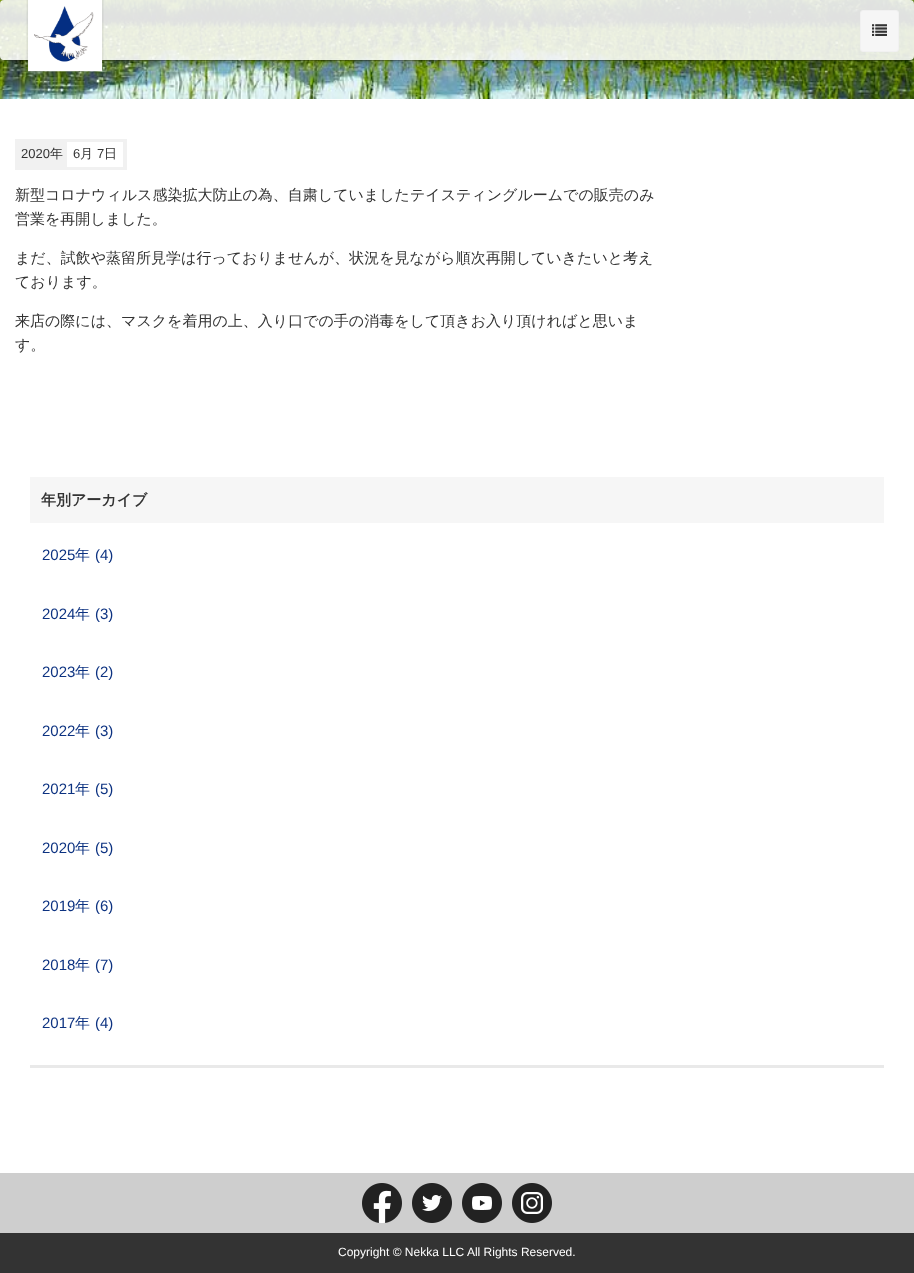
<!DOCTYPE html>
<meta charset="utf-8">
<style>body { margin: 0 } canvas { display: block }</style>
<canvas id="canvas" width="914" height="1273"></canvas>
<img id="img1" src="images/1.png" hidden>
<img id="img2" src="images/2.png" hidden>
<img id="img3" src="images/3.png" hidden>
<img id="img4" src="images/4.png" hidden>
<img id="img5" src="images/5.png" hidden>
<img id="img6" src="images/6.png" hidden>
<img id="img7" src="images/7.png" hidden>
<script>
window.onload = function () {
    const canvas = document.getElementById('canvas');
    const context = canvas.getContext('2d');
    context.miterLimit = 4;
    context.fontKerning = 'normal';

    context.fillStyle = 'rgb(255, 255, 255)';
    context.fillRect(0, 0, 914, 1273);
    context.drawImage(document.getElementById('img1'), 0, 0, 914, 99);
    context.save();
    context.beginPath();
    context.moveTo(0, 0);
    context.lineTo(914, 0);
    context.lineTo(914, 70);
    context.lineTo(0, 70);
    context.closePath();
    context.moveTo(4, 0);
    context.lineTo(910, 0);
    context.bezierCurveTo(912, 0, 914, 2, 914, 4);
    context.lineTo(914, 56);
    context.bezierCurveTo(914, 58, 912, 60, 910, 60);
    context.lineTo(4, 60);
    context.bezierCurveTo(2, 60, 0, 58, 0, 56);
    context.lineTo(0, 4);
    context.bezierCurveTo(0, 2, 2, 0, 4, 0);
    context.closePath();
    context.clip('evenodd');
    context.fillStyle = 'rgba(0, 0, 0, 0.12)';
    context.filter = 'blur(2.5px)';
    context.beginPath();
    context.roundRect(0, 1, 914, 60, 4);
    context.fill();
    context.filter = 'none';
    context.restore();
    context.save();
    context.beginPath();
    context.moveTo(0, 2);
    context.lineTo(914, 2);
    context.lineTo(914, 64);
    context.lineTo(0, 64);
    context.closePath();
    context.moveTo(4, 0);
    context.lineTo(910, 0);
    context.bezierCurveTo(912, 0, 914, 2, 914, 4);
    context.lineTo(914, 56);
    context.bezierCurveTo(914, 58, 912, 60, 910, 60);
    context.lineTo(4, 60);
    context.bezierCurveTo(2, 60, 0, 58, 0, 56);
    context.lineTo(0, 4);
    context.bezierCurveTo(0, 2, 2, 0, 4, 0);
    context.closePath();
    context.clip('evenodd');
    context.fillStyle = 'rgba(0, 0, 0, 0.2)';
    context.filter = 'blur(0.5px)';
    context.beginPath();
    context.roundRect(2, 5, 910, 56, 2);
    context.fill();
    context.filter = 'none';
    context.restore();
    context.save();
    context.beginPath();
    context.moveTo(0, 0);
    context.lineTo(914, 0);
    context.lineTo(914, 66);
    context.lineTo(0, 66);
    context.closePath();
    context.moveTo(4, 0);
    context.lineTo(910, 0);
    context.bezierCurveTo(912, 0, 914, 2, 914, 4);
    context.lineTo(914, 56);
    context.bezierCurveTo(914, 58, 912, 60, 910, 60);
    context.lineTo(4, 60);
    context.bezierCurveTo(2, 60, 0, 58, 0, 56);
    context.lineTo(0, 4);
    context.bezierCurveTo(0, 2, 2, 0, 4, 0);
    context.closePath();
    context.clip('evenodd');
    context.fillStyle = 'rgba(0, 0, 0, 0.14)';
    context.filter = 'blur(1px)';
    context.beginPath();
    context.roundRect(0, 2, 914, 60, 4);
    context.fill();
    context.filter = 'none';
    context.restore();
    context.fillStyle = 'rgba(255, 255, 255, 0.88)';
    context.beginPath();
    context.roundRect(0, 0, 914, 60, 4);
    context.fill();
    context.drawImage(document.getElementById('img2'), 26, 0, 78, 73);
    context.fillStyle = 'rgb(246, 246, 246)';
    context.beginPath();
    context.roundRect(860.5, 10.5, 38, 41, 2.5);
    context.fill();
    context.strokeStyle = 'rgb(241, 241, 241)';
    context.stroke();
    context.drawImage(document.getElementById('img3'), 872, 24, 15, 12);
    context.fillStyle = 'rgb(241, 241, 241)';
    context.fillRect(15, 139, 112, 31);
    context.fillStyle = 'rgb(255, 255, 255)';
    context.fillRect(67, 142, 56, 25);
    context.fillStyle = 'rgb(233, 233, 233)';
    context.fillRect(30, 1065, 854, 3);
    context.fillStyle = 'rgb(246, 246, 246)';
    context.fillRect(30, 477, 854, 46);
    context.fillStyle = 'rgb(51, 51, 51)';
    context.fillRect(0, 1233, 914, 40);
    context.fillStyle = 'rgb(206, 206, 206)';
    context.fillRect(0, 1173, 914, 60);
    context.drawImage(document.getElementById('img4'), 362, 1183, 40, 40);
    context.drawImage(document.getElementById('img5'), 412, 1183, 40, 40);
    context.drawImage(document.getElementById('img6'), 462, 1183, 40, 40);
    context.drawImage(document.getElementById('img7'), 512, 1183, 40, 40);
    context.font = '13px Liberation Sans';
    context.fillStyle = 'rgb(51, 51, 51)';
    context.fillText('2020', 21, 158);
    context.font = '500 13px WenQuanYi Zen Hei';
    context.fillText('年', 50, 158);
    context.font = '13px Liberation Sans';
    context.fillText('6', 73, 158);
    context.font = '500 13px WenQuanYi Zen Hei';
    context.fillText('月', 80, 158);
    context.font = '13px Liberation Sans';
    context.fillText('7', 97, 158);
    context.font = '500 13px WenQuanYi Zen Hei';
    context.fillText('日', 104, 158);
    context.font = '500 15px WenQuanYi Zen Hei';
    context.fillText('新型コロナウィルス感染拡大防止の為、自粛していましたテイスティングルームでの販売のみ', 15, 200);
    context.fillText('営業を再開しました。', 15, 224);
    context.fillText('まだ、試飲や蒸留所見学は行っておりませんが、状況を見ながら順次再開していきたいと考え', 15, 263);
    context.fillText('ております。', 15, 287);
    context.fillText('来店の際には、マスクを着用の上、入り口での手の消毒をして頂きお入り頂ければと思いま', 15, 326);
    context.fillText('す。', 15, 350);
    context.font = 'bold 15px WenQuanYi Zen Hei';
    context.fillText('年別アーカイブ', 41, 505);
    context.font = '15px Liberation Sans';
    context.fillStyle = 'rgb(12, 50, 129)';
    context.fillText('2025', 42, 560);
    context.font = '500 15px WenQuanYi Zen Hei';
    context.fillText('年', 75, 560);
    context.font = '15px Liberation Sans';
    context.fillText('(4)', 95, 560);
    context.fillText('2024', 42, 619);
    context.font = '500 15px WenQuanYi Zen Hei';
    context.fillText('年', 75, 619);
    context.font = '15px Liberation Sans';
    context.fillText('(3)', 95, 619);
    context.fillText('2023', 42, 677);
    context.font = '500 15px WenQuanYi Zen Hei';
    context.fillText('年', 75, 677);
    context.font = '15px Liberation Sans';
    context.fillText('(2)', 95, 677);
    context.fillText('2022', 42, 736);
    context.font = '500 15px WenQuanYi Zen Hei';
    context.fillText('年', 75, 736);
    context.font = '15px Liberation Sans';
    context.fillText('(3)', 95, 736);
    context.fillText('2021', 42, 794);
    context.font = '500 15px WenQuanYi Zen Hei';
    context.fillText('年', 75, 794);
    context.font = '15px Liberation Sans';
    context.fillText('(5)', 95, 794);
    context.fillText('2020', 42, 853);
    context.font = '500 15px WenQuanYi Zen Hei';
    context.fillText('年', 75, 853);
    context.font = '15px Liberation Sans';
    context.fillText('(5)', 95, 853);
    context.fillText('2019', 42, 911);
    context.font = '500 15px WenQuanYi Zen Hei';
    context.fillText('年', 75, 911);
    context.font = '15px Liberation Sans';
    context.fillText('(6)', 95, 911);
    context.fillText('2018', 42, 970);
    context.font = '500 15px WenQuanYi Zen Hei';
    context.fillText('年', 75, 970);
    context.font = '15px Liberation Sans';
    context.fillText('(7)', 95, 970);
    context.fillText('2017', 42, 1028);
    context.font = '500 15px WenQuanYi Zen Hei';
    context.fillText('年', 75, 1028);
    context.font = '15px Liberation Sans';
    context.fillText('(4)', 95, 1028);
    context.font = '12px Liberation Sans';
    context.fillStyle = 'rgb(255, 255, 255)';
    context.fillText('Copyright © Nekka LLC All Rights Reserved.', 338, 1256);
};
</script>
